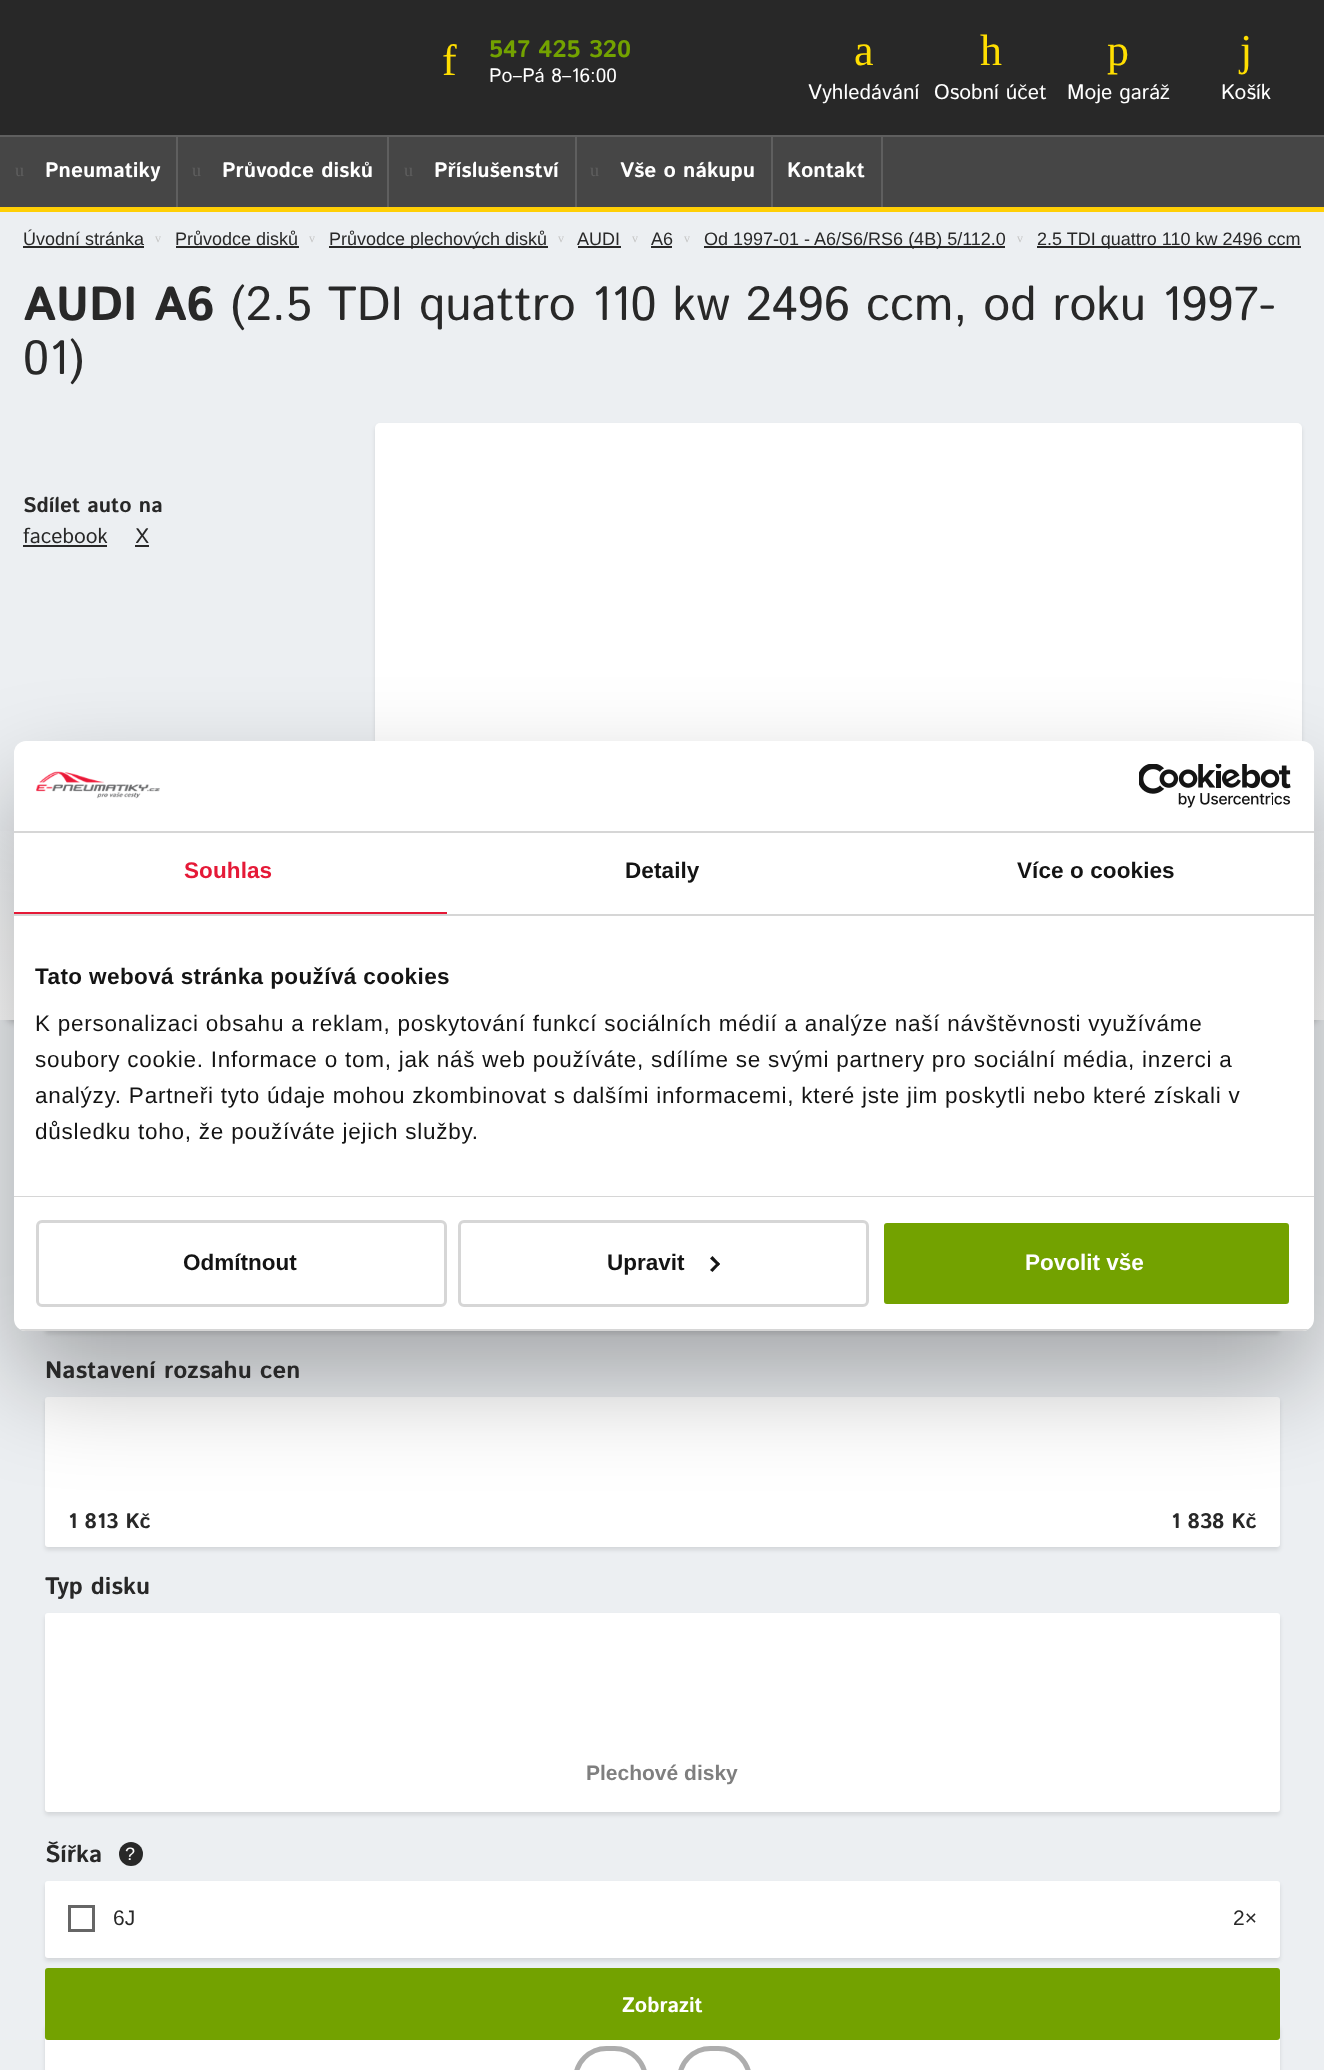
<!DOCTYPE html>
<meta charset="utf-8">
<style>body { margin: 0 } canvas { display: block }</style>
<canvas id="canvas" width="1324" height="2070"></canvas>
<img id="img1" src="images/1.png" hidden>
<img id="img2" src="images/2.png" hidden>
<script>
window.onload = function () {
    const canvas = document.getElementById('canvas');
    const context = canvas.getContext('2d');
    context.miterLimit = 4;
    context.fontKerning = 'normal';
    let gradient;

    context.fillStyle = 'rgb(236, 239, 242)';
    context.fillRect(0, 0, 1324, 2070);
    context.fillStyle = 'rgb(40, 40, 40)';
    context.fillRect(0, 0, 1324, 135);
    context.fillStyle = 'rgb(70, 70, 70)';
    context.fillRect(0, 137, 1324, 70);
    context.fillStyle = 'rgb(95, 95, 95)';
    context.fillRect(0, 135, 1324, 2);
    context.fillStyle = 'rgb(255, 207, 6)';
    context.fillRect(0, 207, 1324, 5);
    context.fillStyle = 'rgb(95, 95, 95)';
    context.fillRect(176, 137, 2, 70);
    context.fillRect(387, 137, 2, 70);
    context.fillRect(575, 137, 2, 70);
    context.fillRect(771, 137, 2, 70);
    context.fillRect(881, 137, 2, 70);
    context.fillStyle = 'rgb(40, 40, 40)';
    context.fillRect(23, 246, 121, 2);
    context.fillRect(176, 246, 123, 2);
    context.fillRect(329, 246, 219, 2);
    context.fillRect(578, 246, 43, 2);
    context.fillRect(651, 246, 21, 2);
    context.fillRect(704, 246, 301, 2);
    context.fillRect(1037, 246, 264, 2);
    context.fillRect(23, 545, 84, 2);
    context.fillRect(135, 545, 14, 2);
    context.fillStyle = 'rgba(0, 0, 0, 0.2)';
    context.filter = 'blur(3px)';
    context.beginPath();
    context.roundRect(6, 975, 1313, 48, 9);
    context.fill();
    context.filter = 'none';
    gradient = context.createLinearGradient(662, 801, 662, 1020);
    gradient.addColorStop(0, 'rgb(236, 239, 242)');
    gradient.addColorStop(1, 'rgb(254, 254, 254)');
    context.fillStyle = gradient;
    context.fillRect(0, 831, 1324, 189);
    context.fillStyle = 'rgba(0, 0, 0, 0.1)';
    context.filter = 'blur(2px)';
    context.beginPath();
    context.roundRect(375, 426, 927, 530, 5);
    context.fill();
    context.filter = 'none';
    context.fillStyle = 'rgb(255, 255, 255)';
    context.beginPath();
    context.roundRect(375, 423, 927, 530, 5);
    context.fill();
    context.fillStyle = 'rgba(0, 0, 0, 0.1)';
    context.filter = 'blur(2px)';
    context.beginPath();
    context.roundRect(45, 1257, 1235, 77, 3);
    context.fill();
    context.filter = 'none';
    context.filter = 'blur(2px)';
    context.beginPath();
    context.roundRect(45, 1400, 1235, 150, 3);
    context.fill();
    context.filter = 'none';
    context.fillStyle = 'rgb(255, 255, 255)';
    context.beginPath();
    context.roundRect(45, 1397, 1235, 150, 3);
    context.fill();
    context.fillStyle = 'rgba(0, 0, 0, 0.1)';
    context.filter = 'blur(2px)';
    context.beginPath();
    context.roundRect(45, 1616, 1235, 199, 3);
    context.fill();
    context.filter = 'none';
    context.fillStyle = 'rgb(255, 255, 255)';
    context.beginPath();
    context.roundRect(45, 1613, 1235, 199, 3);
    context.fill();
    context.fillStyle = 'rgb(40, 40, 40)';
    context.beginPath();
    context.arc(131, 1854, 12, 0, 2 * Math.PI);
    context.fill();
    context.fillStyle = 'rgba(0, 0, 0, 0.1)';
    context.filter = 'blur(2px)';
    context.beginPath();
    context.roundRect(45, 1884, 1235, 77, 3);
    context.fill();
    context.filter = 'none';
    context.fillStyle = 'rgb(255, 255, 255)';
    context.beginPath();
    context.roundRect(45, 1881, 1235, 77, 3);
    context.fill();
    context.beginPath();
    context.rect(69.5, 1906.5, 24, 24);
    context.strokeStyle = 'rgb(102, 102, 102)';
    context.lineWidth = 3;
    context.stroke();
    context.fillStyle = 'rgba(0, 0, 0, 0.1)';
    context.filter = 'blur(2px)';
    context.beginPath();
    context.roundRect(45, 2027, 1235, 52, 3);
    context.fill();
    context.filter = 'none';
    context.fillStyle = 'rgb(255, 255, 255)';
    context.fillRect(45, 2037, 1235, 33);
    context.fillStyle = 'rgb(115, 162, 0)';
    context.beginPath();
    context.roundRect(45, 1968, 1235, 72, 3);
    context.fill();
    context.beginPath();
    context.roundRect(575.5, 2048.5, 70, 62, 35);
    context.strokeStyle = 'rgb(173, 173, 173)';
    context.lineWidth = 5;
    context.stroke();
    context.beginPath();
    context.roundRect(679.5, 2048.5, 70, 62, 35);
    context.stroke();
    context.fillStyle = 'rgba(0, 0, 0, 0.3)';
    context.filter = 'blur(51px)';
    context.beginPath();
    context.roundRect(14, 789, 1300, 590, 12);
    context.fill();
    context.filter = 'none';
    context.fillStyle = 'rgb(255, 255, 255)';
    context.beginPath();
    context.roundRect(14, 741, 1300, 590, 12);
    context.fill();
    context.fillStyle = 'rgb(214, 214, 214)';
    context.fillRect(14, 831, 1300, 2);
    context.drawImage(document.getElementById('img1'), 36, 771, 124, 28);
    context.drawImage(document.getElementById('img2'), 1139, 764, 152, 44);
    context.fillRect(14, 914, 1300, 2);
    context.fillStyle = 'rgb(229, 25, 55)';
    context.fillRect(14, 912, 433, 2);
    context.fillStyle = 'rgb(214, 214, 214)';
    context.fillRect(14, 1196, 1300, 1);
    context.save();
    context.beginPath();
    context.roundRect(14, 741, 1300, 590, 12);
    context.clip();
    context.fillRect(14, 1329, 1300, 2);
    context.restore();
    context.beginPath();
    context.roundRect(37.5, 1221.5, 408, 84, 4.5);
    context.strokeStyle = 'rgb(214, 214, 214)';
    context.lineWidth = 3;
    context.stroke();
    context.beginPath();
    context.roundRect(459.5, 1221.5, 408, 84, 4.5);
    context.stroke();
    context.fillStyle = 'rgb(20, 20, 20)';
    context.beginPath();
    context.moveTo(712.5, 1256);
    context.lineTo(720, 1264);
    context.lineTo(718, 1266);
    context.lineTo(710, 1258.5);
    context.closePath();
    context.fill();
    context.beginPath();
    context.moveTo(718, 1262);
    context.lineTo(720, 1264);
    context.lineTo(712.5, 1272);
    context.lineTo(710, 1270);
    context.closePath();
    context.fill();
    context.fillStyle = 'rgb(115, 162, 0)';
    context.beginPath();
    context.roundRect(882.5, 1221.5, 408, 84, 4.5);
    context.fill();
    context.strokeStyle = 'rgb(255, 255, 255)';
    context.stroke();
    context.font = '44px Liberation Serif';
    context.fillStyle = 'rgb(255, 222, 1)';
    context.fillText('f', 442, 75);
    context.font = 'bold 24px Istok Web';
    context.fillStyle = 'rgb(115, 162, 0)';
    context.fillText('547 425 320', 489, 57);
    context.font = '19.5px Istok Web';
    context.fillStyle = 'rgb(255, 255, 255)';
    context.fillText('Po–Pá 8–16:00', 489, 82);
    context.font = '44px Liberation Serif';
    context.fillStyle = 'rgb(255, 222, 1)';
    context.fillText('h', 980, 65);
    context.font = '21px Istok Web';
    context.fillStyle = 'rgb(255, 255, 255)';
    context.fillText('Osobní účet', 934, 99);
    context.font = '44px Liberation Serif';
    context.fillStyle = 'rgb(255, 222, 1)';
    context.fillText('p', 1107, 65);
    context.font = '21px Istok Web';
    context.fillStyle = 'rgb(255, 255, 255)';
    context.fillText('Moje garáž', 1067, 99);
    context.font = '18px Liberation Serif';
    context.fillStyle = 'rgb(95, 95, 95)';
    context.fillText('u', 15, 176);
    context.font = 'bold 21px Istok Web';
    context.fillStyle = 'rgb(255, 255, 255)';
    context.fillText('Pneumatiky', 45, 177);
    context.font = '18px Liberation Serif';
    context.fillStyle = 'rgb(95, 95, 95)';
    context.fillText('u', 192, 176);
    context.font = 'bold 21px Istok Web';
    context.fillStyle = 'rgb(255, 255, 255)';
    context.fillText('Průvodce disků', 222, 177);
    context.font = '18px Liberation Serif';
    context.fillStyle = 'rgb(95, 95, 95)';
    context.fillText('u', 404, 176);
    context.font = 'bold 21px Istok Web';
    context.fillStyle = 'rgb(255, 255, 255)';
    context.fillText('Příslušenství', 434, 177);
    context.font = '18px Liberation Serif';
    context.fillStyle = 'rgb(95, 95, 95)';
    context.fillText('u', 590, 176);
    context.font = 'bold 21px Istok Web';
    context.fillStyle = 'rgb(255, 255, 255)';
    context.fillText('Vše o nákupu', 620, 177);
    context.fillText('Kontakt', 787, 177);
    context.font = '44px Liberation Serif';
    context.fillStyle = 'rgb(255, 222, 1)';
    context.fillText('a', 854, 65);
    context.font = '21px Istok Web';
    context.fillStyle = 'rgb(255, 255, 255)';
    context.fillText('Vyhledávání', 808, 99);
    context.font = '44px Liberation Serif';
    context.fillStyle = 'rgb(255, 222, 1)';
    context.fillText('j', 1240, 65);
    context.font = '21px Istok Web';
    context.fillStyle = 'rgb(255, 255, 255)';
    context.fillText('Košík', 1221, 99);
    context.font = '18px Liberation Sans';
    context.fillStyle = 'rgb(40, 40, 40)';
    context.fillText('Úvodní stránka', 23, 245);
    context.font = '12px Liberation Serif';
    context.fillStyle = 'rgb(198, 198, 198)';
    context.fillText('v', 155, 242);
    context.font = '18px Liberation Sans';
    context.fillStyle = 'rgb(40, 40, 40)';
    context.fillText('Průvodce disků', 175, 245);
    context.font = '12px Liberation Serif';
    context.fillStyle = 'rgb(198, 198, 198)';
    context.fillText('v', 309, 242);
    context.font = '18px Liberation Sans';
    context.fillStyle = 'rgb(40, 40, 40)';
    context.fillText('Průvodce plechových disků', 329, 245);
    context.font = '12px Liberation Serif';
    context.fillStyle = 'rgb(198, 198, 198)';
    context.fillText('v', 558, 242);
    context.font = '18px Liberation Sans';
    context.fillStyle = 'rgb(40, 40, 40)';
    context.fillText('AUDI', 577, 245);
    context.font = '12px Liberation Serif';
    context.fillStyle = 'rgb(198, 198, 198)';
    context.fillText('v', 632, 242);
    context.font = '18px Liberation Sans';
    context.fillStyle = 'rgb(40, 40, 40)';
    context.fillText('A6', 651, 245);
    context.font = '12px Liberation Serif';
    context.fillStyle = 'rgb(198, 198, 198)';
    context.fillText('v', 684, 242);
    context.font = '18px Liberation Sans';
    context.fillStyle = 'rgb(40, 40, 40)';
    context.fillText('Od 1997-01 - A6/S6/RS6 (4B) 5/112.0', 704, 245);
    context.font = '12px Liberation Serif';
    context.fillStyle = 'rgb(198, 198, 198)';
    context.fillText('v', 1017, 242);
    context.font = '18px Liberation Sans';
    context.fillStyle = 'rgb(40, 40, 40)';
    context.fillText('2.5 TDI quattro 110 kw 2496 ccm', 1037, 245);
    context.font = 'bold 48px Istok Web';
    context.fillText('AUDI A6', 23, 320);
    context.font = '48px Istok Web';
    context.fillText('(2.5 TDI quattro 110 kw 2496 ccm, od roku 1997-', 230, 320);
    context.fillText('01)', 23, 374);
    context.font = 'bold 21px Istok Web';
    context.fillText('Sdílet auto na', 23, 512);
    context.font = '21px Istok Web';
    context.fillText('facebook', 23, 543);
    context.fillText('X', 135, 543);
    context.font = 'bold 24px Istok Web';
    context.fillText('Nastavení rozsahu cen', 45, 1378);
    context.font = 'bold 21px Istok Web';
    context.fillText('1 813 Kč', 68, 1528);
    context.fillText('1 838 Kč', 1171, 1528);
    context.font = 'bold 24px Istok Web';
    context.fillText('Typ disku', 45, 1594);
    context.font = 'bold 21px Liberation Sans';
    context.fillStyle = 'rgb(127, 127, 127)';
    context.fillText('Plechové disky', 586, 1780);
    context.font = 'bold 24px Istok Web';
    context.fillStyle = 'rgb(40, 40, 40)';
    context.fillText('Šířka', 45, 1862);
    context.font = '18px Liberation Sans';
    context.fillStyle = 'rgb(255, 255, 255)';
    context.fillText('?', 125, 1860);
    context.font = '21px Liberation Sans';
    context.fillStyle = 'rgb(40, 40, 40)';
    context.fillText('6J', 113, 1925);
    context.fillText('2×', 1233, 1925);
    context.font = 'bold 21px Istok Web';
    context.fillStyle = 'rgb(255, 255, 255)';
    context.fillText('Zobrazit', 622, 2012);
    context.letterSpacing = '0.1px';
    context.font = 'bold 22.5px Liberation Sans';
    context.fillStyle = 'rgb(229, 25, 55)';
    context.fillText('Souhlas', 184, 878);
    context.fillStyle = 'rgb(20, 20, 20)';
    context.fillText('Detaily', 625, 878);
    context.fillText('Více o cookies', 1017, 878);
    context.letterSpacing = '0.4px';
    context.fillText('Tato webová stránka používá cookies', 35, 984);
    context.letterSpacing = '0.75px';
    context.font = '22.5px Liberation Sans';
    context.fillText('K personalizaci obsahu a reklam, poskytování funkcí sociálních médií a analýze naší návštěvnosti využíváme', 35, 1031);
    context.fillText('soubory cookie. Informace o tom, jak náš web používáte, sdílíme se svými partnery pro sociální média, inzerci a', 35, 1067);
    context.fillText('analýzy. Partneři tyto údaje mohou zkombinovat s dalšími informacemi, které jste jim poskytli nebo které získali v', 35, 1103);
    context.fillText('důsledku toho, že používáte jejich služby.', 35, 1139);
    context.letterSpacing = '0px';
    context.font = 'bold 22.5px Liberation Sans';
    context.fillText('Odmítnout', 183, 1270);
    context.fillText('Upravit', 607, 1270);
    context.fillStyle = 'rgb(255, 255, 255)';
    context.fillText('Povolit vše', 1025, 1270);
};
</script>
